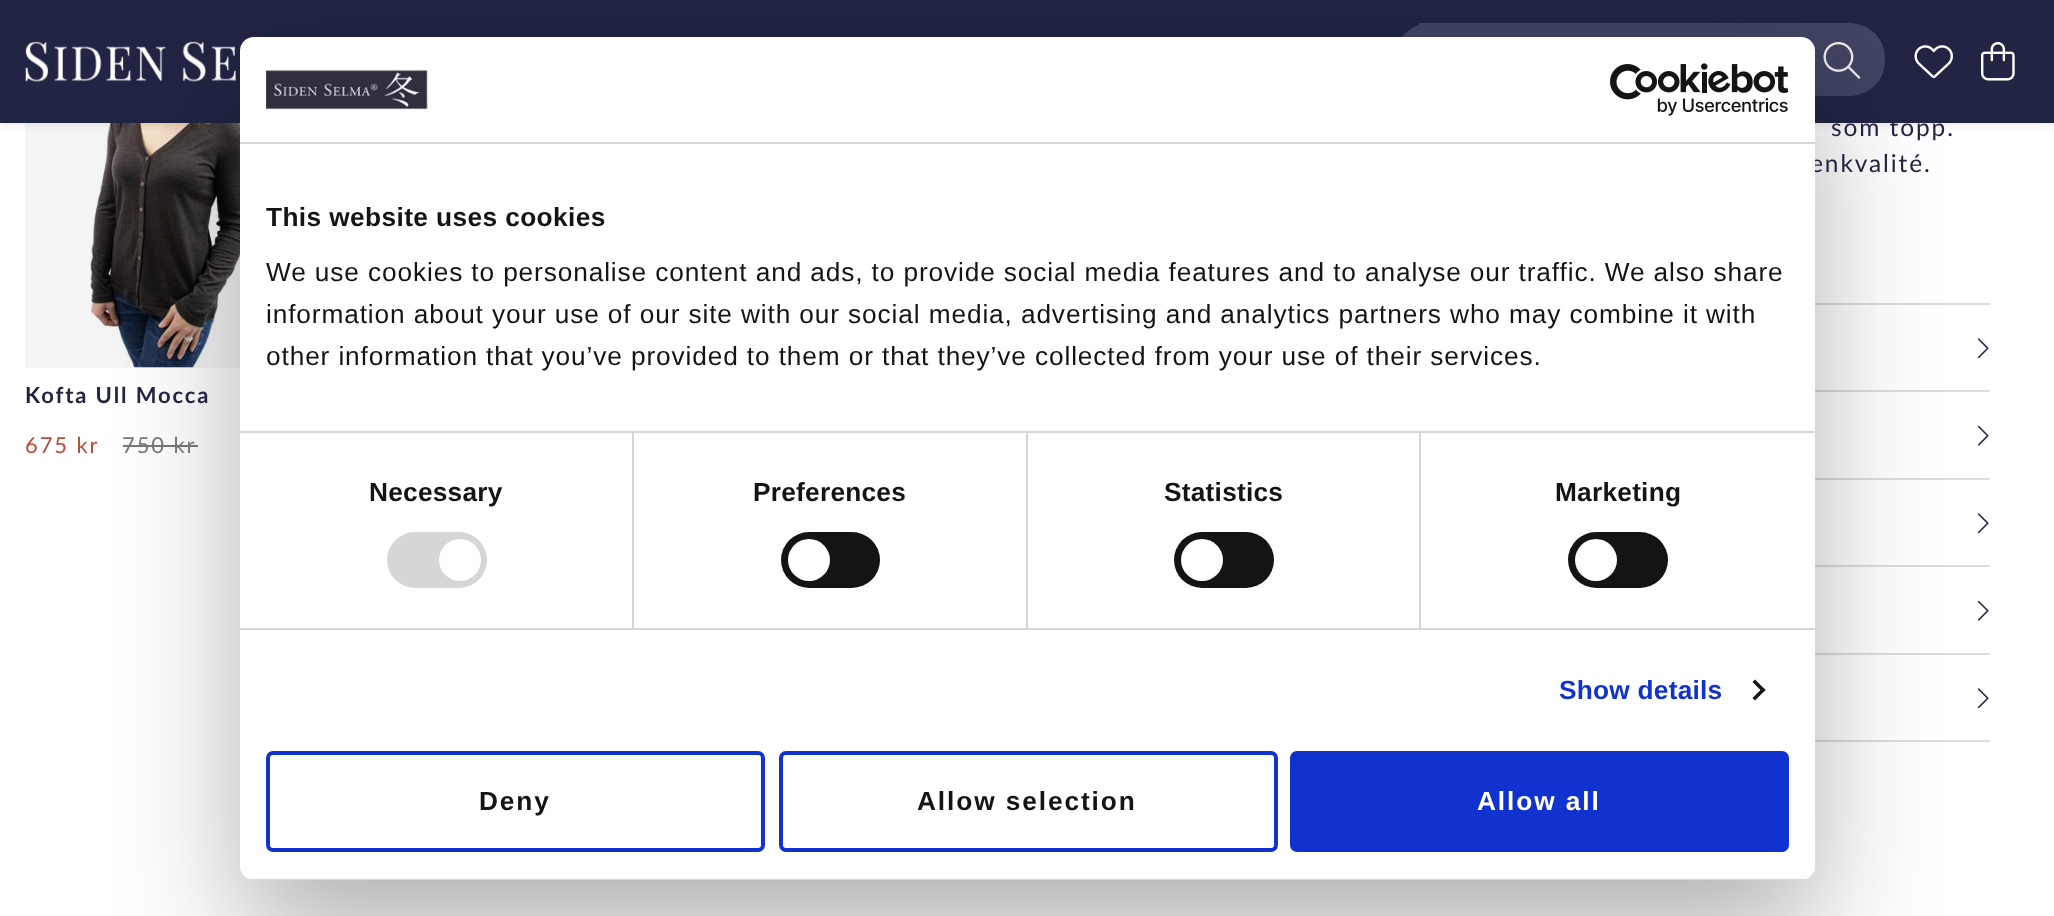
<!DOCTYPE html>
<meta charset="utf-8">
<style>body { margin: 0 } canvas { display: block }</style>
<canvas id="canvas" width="2054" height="916"></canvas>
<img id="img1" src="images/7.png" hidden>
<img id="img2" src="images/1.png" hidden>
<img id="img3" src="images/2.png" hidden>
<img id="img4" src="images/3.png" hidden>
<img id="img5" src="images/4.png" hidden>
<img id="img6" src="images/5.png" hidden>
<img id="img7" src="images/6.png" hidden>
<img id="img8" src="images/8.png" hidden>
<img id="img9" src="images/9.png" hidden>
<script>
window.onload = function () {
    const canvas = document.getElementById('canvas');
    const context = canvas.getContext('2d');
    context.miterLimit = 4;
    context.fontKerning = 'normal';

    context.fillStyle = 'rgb(255, 255, 255)';
    context.fillRect(0, 0, 2054, 916);
    context.fillStyle = 'rgb(245, 245, 245)';
    context.fillRect(25, 123, 215, 245);
    context.drawImage(document.getElementById('img1'), 85, 123, 155, 245);
    context.fillStyle = 'rgba(0, 0, 0, 0.11)';
    context.filter = 'blur(4.5px)';
    context.beginPath();
    context.rect(0, 2, 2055, 122);
    context.fill();
    context.filter = 'none';
    context.fillStyle = 'rgb(33, 37, 67)';
    context.fillRect(0, 0, 2054, 123);
    context.drawImage(document.getElementById('img2'), 25, 41, 212, 41);
    context.fillStyle = 'rgb(65, 68, 98)';
    context.beginPath();
    context.roundRect(1395, 23, 490, 73, 35);
    context.fill();
    context.fillRect(1419, 23, 9, 2);
    context.drawImage(document.getElementById('img3'), 1823, 42, 38, 37);
    context.drawImage(document.getElementById('img4'), 1914, 45, 39, 34);
    context.drawImage(document.getElementById('img5'), 1981, 42, 34, 39);
    context.fillStyle = 'rgb(221, 221, 221)';
    context.fillRect(1815, 303, 175, 2);
    context.drawImage(document.getElementById('img6'), 1977, 338, 12, 21);
    context.fillRect(1815, 390, 175, 2);
    context.drawImage(document.getElementById('img7'), 1977, 425, 12, 21);
    context.fillRect(1815, 478, 175, 2);
    context.drawImage(document.getElementById('img6'), 1977, 513, 12, 21);
    context.fillRect(1815, 565, 175, 2);
    context.drawImage(document.getElementById('img7'), 1977, 600, 12, 21);
    context.fillRect(1815, 653, 175, 2);
    context.fillRect(1815, 740, 175, 2);
    context.drawImage(document.getElementById('img6'), 1977, 688, 12, 21);
    context.fillStyle = 'rgb(119, 119, 119)';
    context.fillRect(123, 445, 75, 2);
    context.fillStyle = 'rgba(0, 0, 0, 0.3)';
    context.filter = 'blur(59.5px)';
    context.beginPath();
    context.roundRect(240, 93, 1575, 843, 14);
    context.fill();
    context.filter = 'none';
    context.letterSpacing = '1.9px';
    context.font = '24.5px Lato';
    context.fillStyle = 'rgb(33, 37, 67)';
    context.fillText('som topp.', 1831, 136);
    context.fillText('enkvalité.', 1810, 172);
    context.font = 'bold 22px Lato';
    context.fillText('Kofta Ull Mocca', 25, 403);
    context.font = '22px Lato';
    context.fillStyle = 'rgb(180, 78, 60)';
    context.fillText('675 kr', 25, 453);
    context.fillStyle = 'rgb(119, 119, 119)';
    context.fillText('750 kr', 122, 453);
    context.fillStyle = 'rgb(255, 255, 255)';
    context.beginPath();
    context.roundRect(240, 37, 1575, 843, 14);
    context.fill();
    context.fillStyle = 'rgb(214, 214, 214)';
    context.fillRect(240, 142, 1575, 2);
    context.drawImage(document.getElementById('img8'), 266, 70, 162, 40);
    context.drawImage(document.getElementById('img9'), 1610, 63, 179, 53);
    context.letterSpacing = '0.4px';
    context.font = 'bold 26.25px Liberation Sans';
    context.fillStyle = 'rgb(20, 20, 20)';
    context.fillText('This website uses cookies', 266, 226);
    context.letterSpacing = '0.88px';
    context.font = '26.25px Liberation Sans';
    context.fillText('We use cookies to personalise content and ads, to provide social media features and to analyse our traffic. We also share', 266, 281);
    context.fillText('information about your use of our site with our social media, advertising and analytics partners who may combine it with', 266, 323);
    context.fillText('other information that you’ve provided to them or that they’ve collected from your use of their services.', 266, 365);
    context.fillStyle = 'rgb(214, 214, 214)';
    context.fillRect(240, 628, 1575, 2);
    context.fillRect(632, 432, 2, 196);
    context.letterSpacing = '0.25px';
    context.font = 'bold 26.25px Liberation Sans';
    context.fillStyle = 'rgb(20, 20, 20)';
    context.fillText('Necessary', 369, 501);
    context.fillStyle = 'rgb(214, 214, 214)';
    context.beginPath();
    context.roundRect(387, 532, 100, 56, 28);
    context.fill();
    context.fillStyle = 'rgb(255, 255, 255)';
    context.beginPath();
    context.arc(460, 560, 21, 0, 2 * Math.PI);
    context.fill();
    context.fillStyle = 'rgb(214, 214, 214)';
    context.fillRect(1026, 432, 2, 196);
    context.fillStyle = 'rgb(20, 20, 20)';
    context.fillText('Preferences', 753, 501);
    context.beginPath();
    context.roundRect(781, 532, 99, 56, 28);
    context.fill();
    context.fillStyle = 'rgb(255, 255, 255)';
    context.beginPath();
    context.arc(809, 560, 21, 0, 2 * Math.PI);
    context.fill();
    context.fillStyle = 'rgb(214, 214, 214)';
    context.fillRect(1419, 432, 2, 196);
    context.fillRect(240, 431, 1575, 2);
    context.fillStyle = 'rgb(20, 20, 20)';
    context.fillText('Statistics', 1164, 501);
    context.beginPath();
    context.roundRect(1174, 532, 100, 56, 28);
    context.fill();
    context.fillStyle = 'rgb(255, 255, 255)';
    context.beginPath();
    context.arc(1202, 560, 21, 0, 2 * Math.PI);
    context.fill();
    context.fillStyle = 'rgb(20, 20, 20)';
    context.fillText('Marketing', 1555, 501);
    context.beginPath();
    context.roundRect(1568, 532, 100, 56, 28);
    context.fill();
    context.fillStyle = 'rgb(255, 255, 255)';
    context.beginPath();
    context.arc(1596, 560, 21, 0, 2 * Math.PI);
    context.fill();
    context.fillStyle = 'rgb(16, 50, 207)';
    context.fillText('Show details', 1559, 699);
    context.fillStyle = 'rgb(20, 20, 20)';
    context.beginPath();
    context.moveTo(1755, 679.5);
    context.lineTo(1765.5, 690);
    context.lineTo(1763, 692.5);
    context.lineTo(1752.5, 682);
    context.closePath();
    context.fill();
    context.beginPath();
    context.moveTo(1763, 687.5);
    context.lineTo(1765.5, 690);
    context.lineTo(1755, 700.5);
    context.lineTo(1752.5, 698);
    context.closePath();
    context.fill();
    context.save();
    context.beginPath();
    context.roundRect(240, 37, 1575, 843, 14);
    context.clip();
    context.fillStyle = 'rgb(214, 214, 214)';
    context.fillRect(249, 879, 1557, 1);
    context.restore();
    context.beginPath();
    context.roundRect(268, 753, 495, 97, 5);
    context.strokeStyle = 'rgb(16, 50, 207)';
    context.lineWidth = 4;
    context.stroke();
    context.letterSpacing = '1.9px';
    context.fillText('Deny', 479, 810);
    context.beginPath();
    context.roundRect(781, 753, 495, 97, 5);
    context.stroke();
    context.fillText('Allow selection', 917, 810);
    context.fillStyle = 'rgb(16, 50, 207)';
    context.beginPath();
    context.roundRect(1292, 753, 495, 97, 5);
    context.fill();
    context.stroke();
    context.fillStyle = 'rgb(255, 255, 255)';
    context.fillText('Allow all', 1477, 810);
};
</script>
